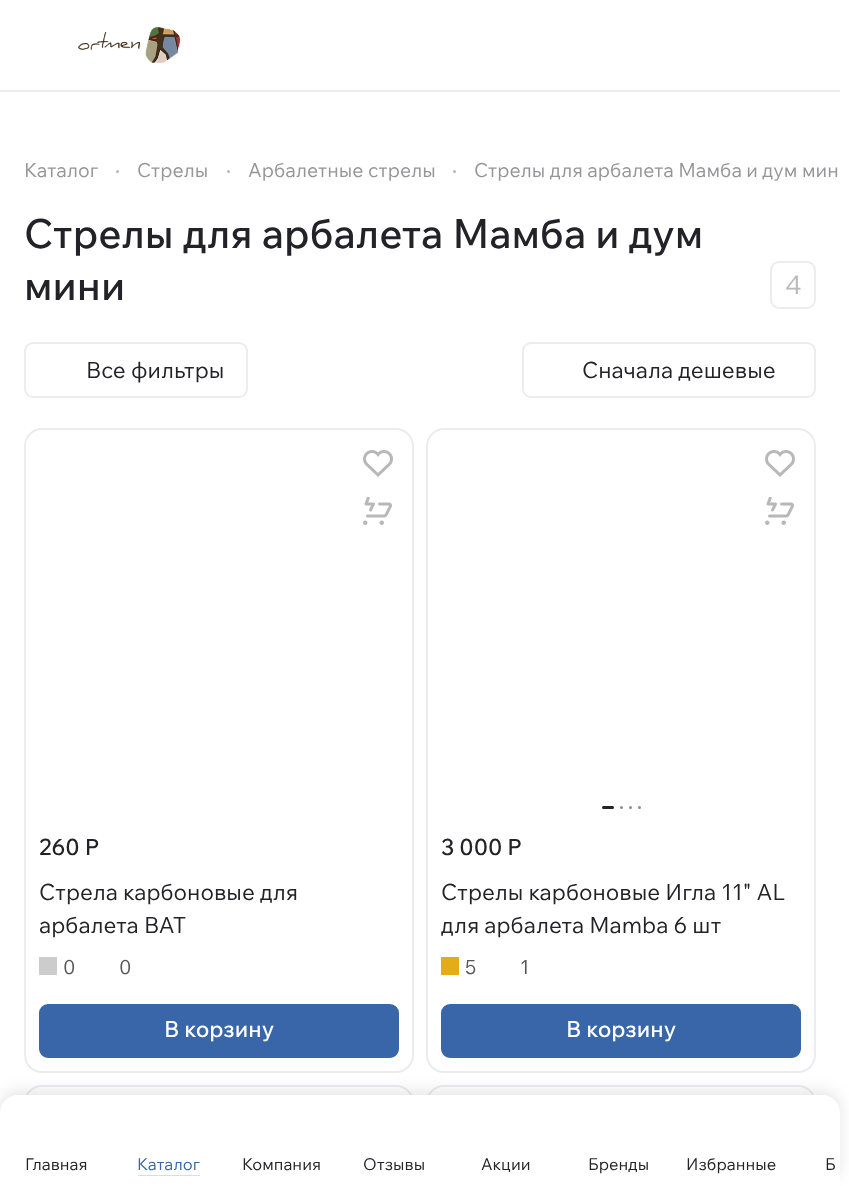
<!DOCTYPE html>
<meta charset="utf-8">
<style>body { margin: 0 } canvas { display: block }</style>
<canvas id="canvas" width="849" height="1186"></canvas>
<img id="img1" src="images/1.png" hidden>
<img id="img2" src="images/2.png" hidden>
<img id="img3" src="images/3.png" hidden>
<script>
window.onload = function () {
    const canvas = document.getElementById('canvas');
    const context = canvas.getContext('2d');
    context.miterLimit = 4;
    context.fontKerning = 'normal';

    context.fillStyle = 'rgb(255, 255, 255)';
    context.fillRect(0, 0, 849, 1186);
    context.fillStyle = 'rgb(235, 236, 239)';
    context.fillRect(0, 90, 840, 2);
    context.drawImage(document.getElementById('img1'), 78, 27, 103, 36);
    context.fillStyle = 'rgb(184, 184, 185)';
    context.beginPath();
    context.arc(117.5, 171.5, 1.5, 0, 2 * Math.PI);
    context.fill();
    context.beginPath();
    context.arc(228.5, 171.5, 1.5, 0, 2 * Math.PI);
    context.fill();
    context.beginPath();
    context.arc(454.5, 171.5, 1.5, 0, 2 * Math.PI);
    context.fill();
    context.beginPath();
    context.roundRect(771, 262, 44, 46, 8);
    context.strokeStyle = 'rgb(235, 236, 239)';
    context.lineWidth = 2;
    context.stroke();
    context.beginPath();
    context.roundRect(25, 343, 222, 54, 8);
    context.stroke();
    context.beginPath();
    context.roundRect(523, 343, 292, 54, 8);
    context.stroke();
    context.beginPath();
    context.roundRect(25, 429, 388, 643, 17);
    context.stroke();
    context.drawImage(document.getElementById('img2'), 363, 450, 30, 27);
    context.drawImage(document.getElementById('img3'), 363, 497, 29, 28);
    context.fillStyle = 'rgb(204, 204, 204)';
    context.fillRect(39, 957, 18, 18);
    context.fillStyle = 'rgb(57, 102, 168)';
    context.beginPath();
    context.roundRect(40, 1005, 358, 52, 8);
    context.fill();
    context.strokeStyle = 'rgb(57, 102, 168)';
    context.stroke();
    context.beginPath();
    context.roundRect(427, 429, 388, 643, 17);
    context.strokeStyle = 'rgb(235, 236, 239)';
    context.stroke();
    context.drawImage(document.getElementById('img2'), 765, 450, 30, 27);
    context.drawImage(document.getElementById('img3'), 765, 497, 29, 28);
    context.fillStyle = 'rgb(34, 34, 40)';
    context.beginPath();
    context.roundRect(602, 806, 12, 3, 1.5);
    context.fill();
    context.fillStyle = 'rgb(141, 141, 141)';
    context.beginPath();
    context.arc(621.5, 807.5, 1.5, 0, 2 * Math.PI);
    context.fill();
    context.beginPath();
    context.arc(630.5, 807.5, 1.5, 0, 2 * Math.PI);
    context.fill();
    context.beginPath();
    context.arc(639.5, 807.5, 1.5, 0, 2 * Math.PI);
    context.fill();
    context.fillStyle = 'rgb(229, 172, 26)';
    context.fillRect(441, 957, 18, 18);
    context.fillStyle = 'rgb(57, 102, 168)';
    context.beginPath();
    context.roundRect(442, 1005, 358, 52, 8);
    context.fill();
    context.strokeStyle = 'rgb(57, 102, 168)';
    context.stroke();
    context.beginPath();
    context.roundRect(25, 1086, 388, 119, 17);
    context.strokeStyle = 'rgb(235, 236, 239)';
    context.stroke();
    context.beginPath();
    context.roundRect(427, 1086, 388, 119, 17);
    context.stroke();
    context.fillStyle = 'rgba(0, 0, 0, 0.1)';
    context.filter = 'blur(7.5px)';
    context.beginPath();
    context.roundRect(0, 1091, 840, 91, 18);
    context.fill();
    context.filter = 'none';
    context.fillStyle = 'rgb(255, 255, 255)';
    context.beginPath();
    context.moveTo(18, 1095);
    context.lineTo(822, 1095);
    context.bezierCurveTo(832, 1095, 840, 1103, 840, 1113);
    context.lineTo(840, 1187);
    context.lineTo(0, 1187);
    context.lineTo(0, 1113);
    context.bezierCurveTo(0, 1103, 8, 1095, 18, 1095);
    context.closePath();
    context.fill();
    context.fillStyle = 'rgb(220, 220, 221)';
    context.fillRect(138, 1175, 62, 1);
    context.font = '19.5px Wix Madefor Text';
    context.fillStyle = 'rgb(149, 149, 152)';
    context.fillText('Каталог', 24, 177);
    context.fillText('Стрелы', 137, 177);
    context.fillText('Арбалетные стрелы', 248, 177);
    context.fillText('Стрелы для арбалета Мамба и дум мин', 474, 177);
    context.font = '500 40.5px Wix Madefor Text';
    context.fillStyle = 'rgb(34, 34, 40)';
    context.fillText('Стрелы для арбалета Мамба и дум', 24, 248);
    context.fillText('мини', 24, 300);
    context.font = '26px Wix Madefor Text';
    context.fillStyle = 'rgb(184, 184, 185)';
    context.fillText('4', 785, 294);
    context.font = '22.5px Wix Madefor Text';
    context.fillStyle = 'rgb(34, 34, 40)';
    context.fillText('Все фильтры', 86, 378);
    context.fillText('Сначала дешевые', 582, 378);
    context.font = '500 22.5px Wix Madefor Text';
    context.fillText('260 Р', 39, 855);
    context.font = '22.5px Wix Madefor Text';
    context.fillText('Стрела карбоновые для', 39, 900);
    context.fillText('арбалета BAT', 39, 933);
    context.font = '19.5px Wix Madefor Text';
    context.fillStyle = 'rgb(85, 85, 88)';
    context.fillText('0', 63, 974);
    context.fillText('0', 119, 974);
    context.font = '500 22.5px Wix Madefor Text';
    context.fillStyle = 'rgb(255, 255, 255)';
    context.fillText('В корзину', 164, 1037);
    context.fillStyle = 'rgb(34, 34, 40)';
    context.fillText('3 000 Р', 441, 855);
    context.font = '22.5px Wix Madefor Text';
    context.fillText('Стрелы карбоновые Игла 11" AL', 441, 900);
    context.fillText('для арбалета Mamba 6 шт', 441, 933);
    context.font = '19.5px Wix Madefor Text';
    context.fillStyle = 'rgb(85, 85, 88)';
    context.fillText('5', 465, 974);
    context.fillText('1', 520, 974);
    context.font = '500 22.5px Wix Madefor Text';
    context.fillStyle = 'rgb(255, 255, 255)';
    context.fillText('В корзину', 566, 1037);
    context.font = '16.5px Wix Madefor Text';
    context.fillStyle = 'rgb(34, 34, 40)';
    context.fillText('Главная', 25, 1170);
    context.fillStyle = 'rgb(57, 102, 168)';
    context.fillText('Каталог', 137, 1170);
    context.fillStyle = 'rgb(34, 34, 40)';
    context.fillText('Компания', 242, 1170);
    context.fillText('Отзывы', 363, 1170);
    context.fillText('Акции', 481, 1170);
    context.fillText('Бренды', 588, 1170);
    context.fillText('Избранные', 686, 1170);
    context.fillText('Б', 825, 1170);
};
</script>
